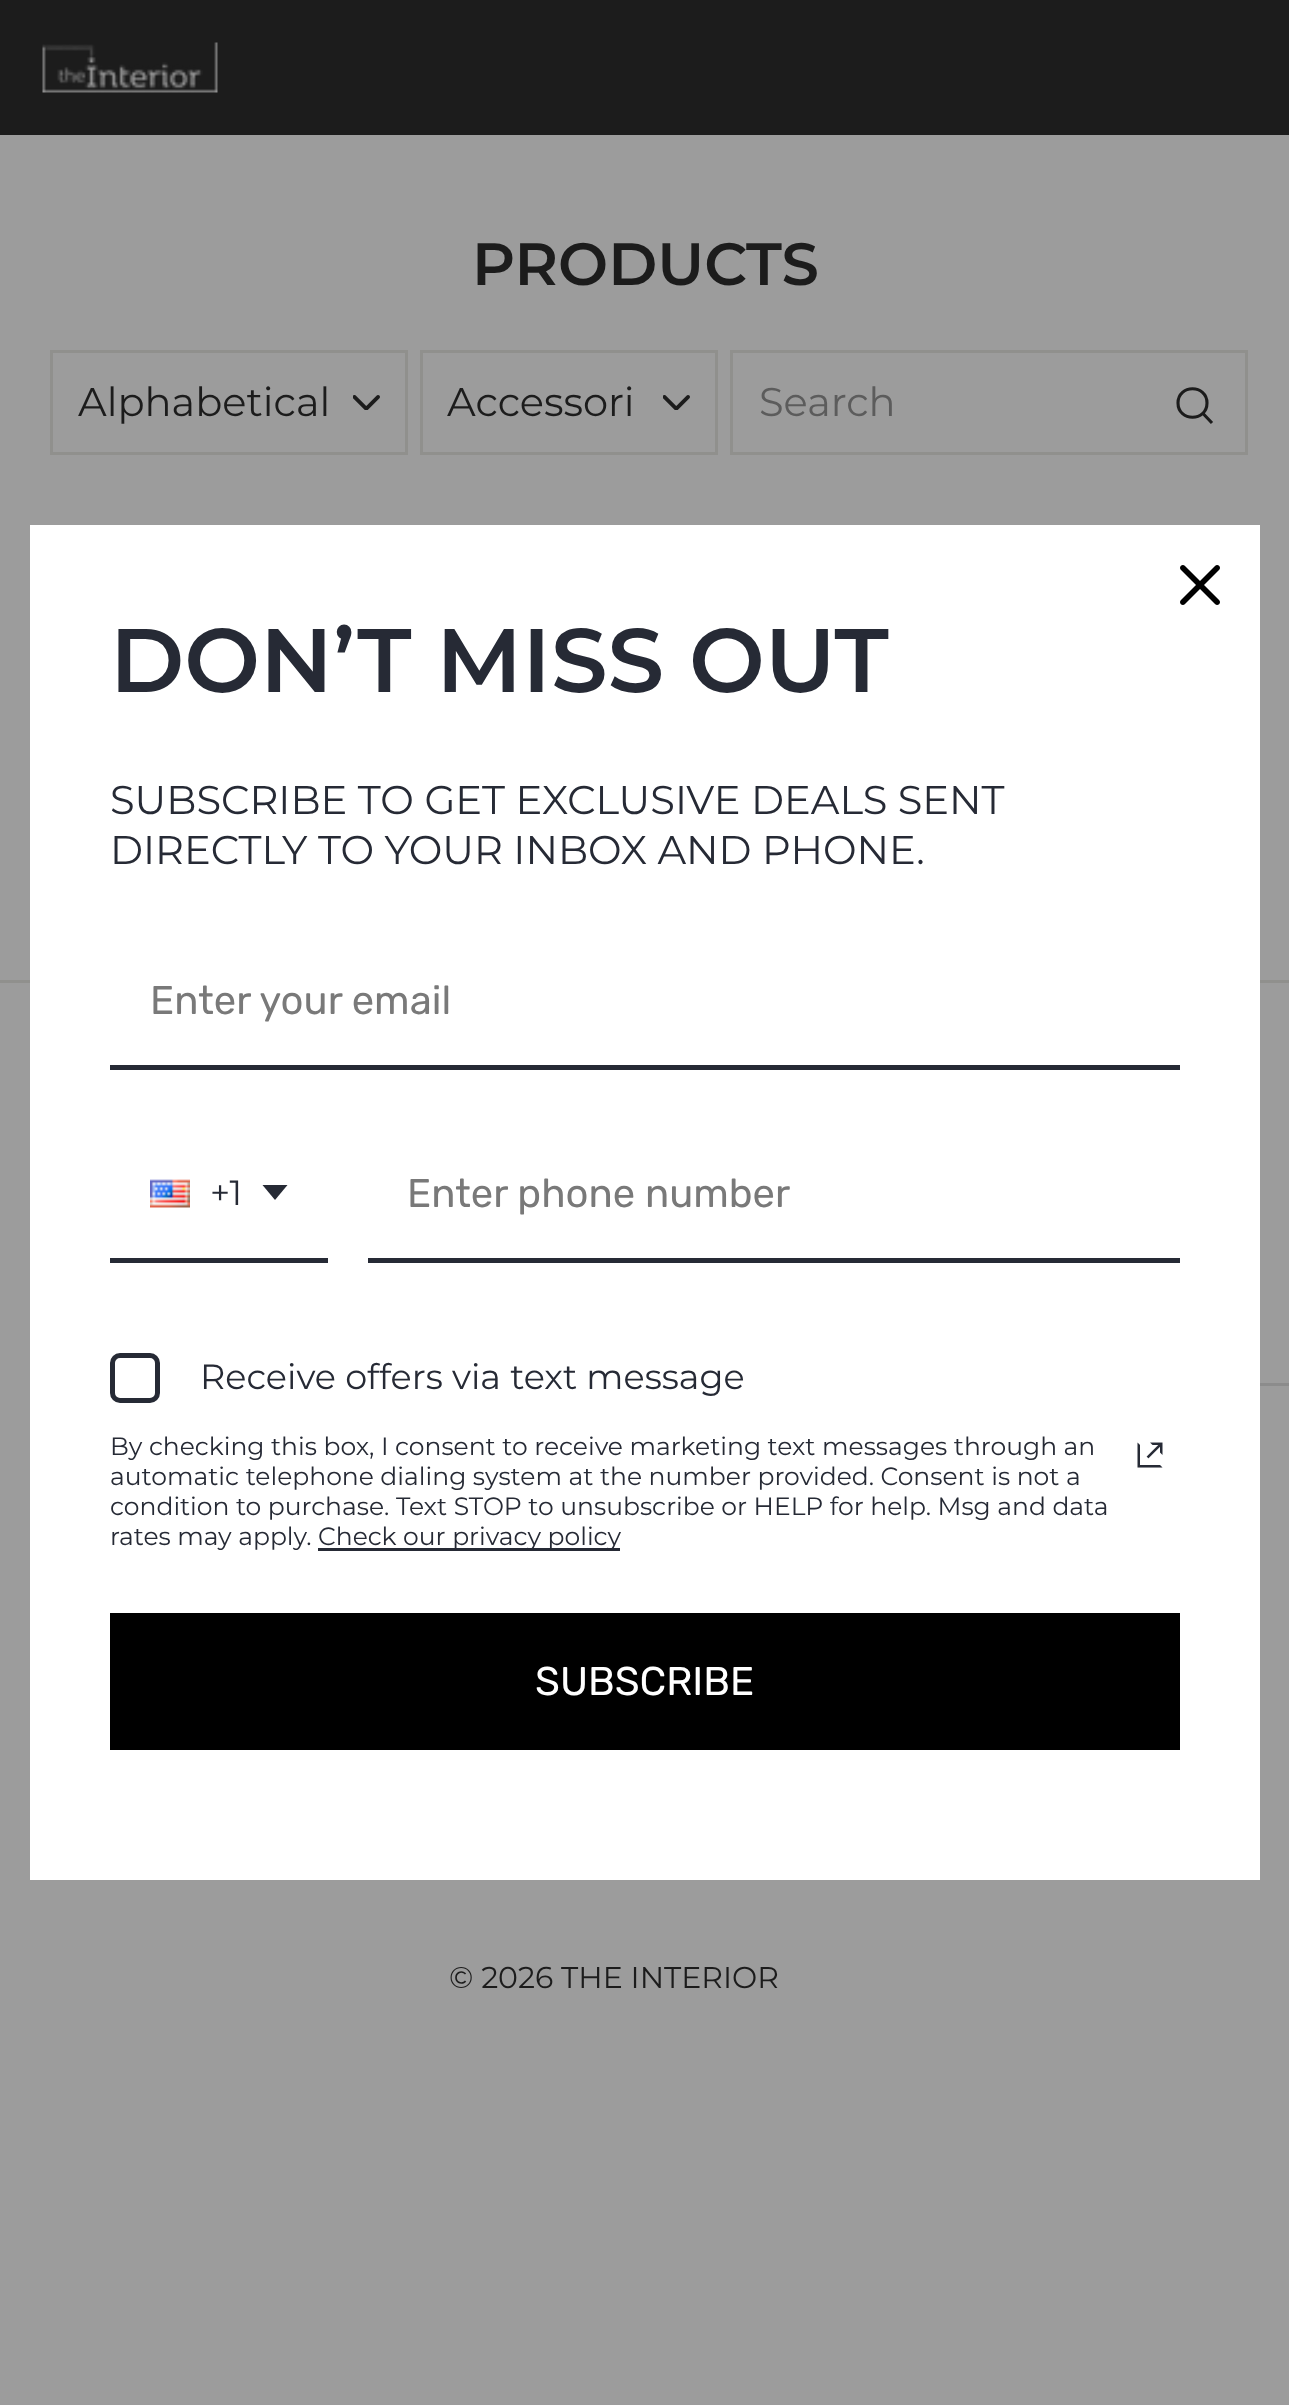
<!DOCTYPE html>
<meta charset="utf-8">
<style>body { margin: 0 } canvas { display: block }</style>
<canvas id="canvas" width="1289" height="2405"></canvas>
<img id="img1" src="images/1.png" hidden>
<img id="img2" src="images/2.png" hidden>
<img id="img3" src="images/3.png" hidden>
<img id="img4" src="images/4.png" hidden>
<img id="img5" src="images/5.png" hidden>
<script>
window.onload = function () {
    const canvas = document.getElementById('canvas');
    const context = canvas.getContext('2d');
    context.miterLimit = 4;
    context.fontKerning = 'normal';

    context.fillStyle = 'rgb(156, 156, 156)';
    context.fillRect(0, 0, 1289, 2405);
    context.fillStyle = 'rgb(28, 28, 28)';
    context.fillRect(0, 0, 1289, 135);
    context.drawImage(document.getElementById('img1'), 42, 42, 176, 51);
    context.drawImage(document.getElementById('img2'), 353, 395, 27, 15);
    context.strokeStyle = 'rgb(144, 144, 141)';
    context.lineWidth = 3;
    context.strokeRect(51.5, 351.5, 355, 102);
    context.drawImage(document.getElementById('img2'), 663, 395, 27, 15);
    context.strokeRect(421.5, 351.5, 295, 102);
    context.strokeRect(731.5, 351.5, 515, 102);
    context.beginPath();
    context.moveTo(1207, 403);
    context.bezierCurveTo(1207, 422, 1178, 422, 1178, 403);
    context.bezierCurveTo(1178, 384, 1207, 384, 1207, 403);
    context.closePath();
    context.moveTo(1212, 423);
    context.lineTo(1203, 413.5);
    context.strokeStyle = 'rgb(28, 28, 28)';
    context.lineWidth = 3.1;
    context.stroke();
    context.fillStyle = 'rgb(144, 144, 141)';
    context.fillRect(0, 980, 1289, 3);
    context.fillStyle = 'rgb(140, 140, 140)';
    context.fillRect(1260, 1383, 29, 3);
    context.fillStyle = 'rgb(255, 255, 255)';
    context.fillRect(30, 525, 1230, 1355);
    context.drawImage(document.getElementById('img3'), 1180, 565, 40, 40);
    context.fillStyle = 'rgb(38, 42, 53)';
    context.fillRect(110, 1065, 1070, 5);
    context.fillRect(110, 1258, 218, 5);
    context.drawImage(document.getElementById('img4'), 150, 1179, 40, 29);
    context.beginPath();
    context.moveTo(262.5, 1185);
    context.lineTo(287.5, 1185);
    context.lineTo(275, 1200);
    context.closePath();
    context.fill('evenodd');
    context.fillRect(368, 1258, 812, 5);
    context.beginPath();
    context.roundRect(112.5, 1355.5, 45, 45, 7.5);
    context.strokeStyle = 'rgb(38, 42, 53)';
    context.lineWidth = 5;
    context.stroke();
    context.fillRect(318, 1548, 302, 3);
    context.drawImage(document.getElementById('img5'), 1137, 1442, 26, 26);
    context.fillStyle = 'rgb(0, 0, 0)';
    context.fillRect(110, 1613, 1070, 137);
    context.font = '600 59.5px Montserrat';
    context.fillStyle = 'rgb(28, 28, 28)';
    context.fillText('PRODUCTS', 472, 285);
    context.font = '40px Montserrat';
    context.fillText('Alphabetical', 78, 416);
    context.fillText('Accessori', 447, 416);
    context.fillStyle = 'rgb(92, 92, 92)';
    context.fillText('Search', 759, 416);
    context.font = '30px Montserrat';
    context.fillStyle = 'rgb(28, 28, 28)';
    context.fillText('© 2026 THE INTERIOR', 449, 1988);
    context.font = '600 90px Montserrat';
    context.fillStyle = 'rgb(38, 42, 53)';
    context.fillText('DON’T MISS OUT', 110, 692);
    context.font = '40px Montserrat';
    context.fillText('SUBSCRIBE TO GET EXCLUSIVE DEALS SENT', 110, 814);
    context.fillText('DIRECTLY TO YOUR INBOX AND PHONE.', 110, 864);
    context.font = '40px Rubik';
    context.fillStyle = 'rgb(121, 121, 121)';
    context.fillText('Enter your email', 150, 1014);
    context.font = '35px Montserrat';
    context.fillStyle = 'rgb(38, 42, 53)';
    context.fillText('+1', 210, 1205);
    context.font = '40px Rubik';
    context.fillStyle = 'rgb(121, 121, 121)';
    context.fillText('Enter phone number', 407, 1207);
    context.font = '35px Montserrat';
    context.fillStyle = 'rgb(38, 42, 53)';
    context.fillText('Receive offers via text message', 200, 1389);
    context.font = '25px Montserrat';
    context.fillText('By checking this box, I consent to receive marketing text messages through an', 110, 1455);
    context.fillText('automatic telephone dialing system at the number provided. Consent is not a', 110, 1485);
    context.fillText('condition to purchase. Text STOP to unsubscribe or HELP for help. Msg and data', 110, 1515);
    context.fillText('rates may apply.', 110, 1545);
    context.fillText('Check our privacy policy', 318, 1545);
    context.font = '40px Rubik';
    context.fillStyle = 'rgb(255, 255, 255)';
    context.fillText('SUBSCRIBE', 535, 1695);
};
</script>
